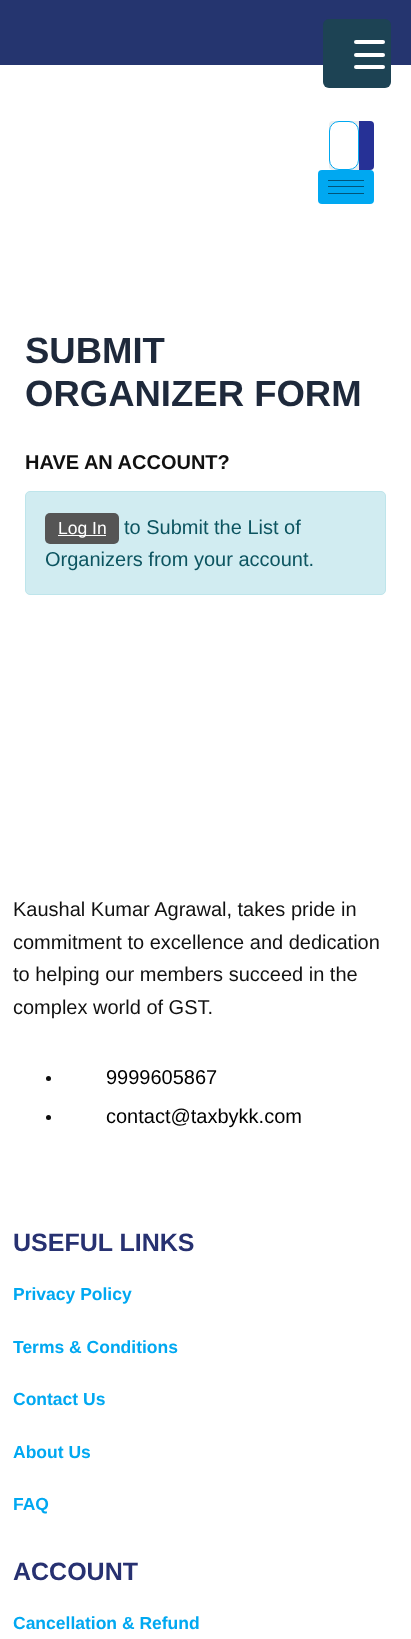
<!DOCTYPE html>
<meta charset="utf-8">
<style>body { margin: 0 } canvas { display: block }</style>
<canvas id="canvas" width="411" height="1639"></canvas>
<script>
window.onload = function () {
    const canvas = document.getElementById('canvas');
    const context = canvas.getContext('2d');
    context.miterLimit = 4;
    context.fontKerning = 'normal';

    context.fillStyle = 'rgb(255, 255, 255)';
    context.fillRect(0, 0, 411, 1639);
    context.fillStyle = 'rgb(37, 53, 111)';
    context.fillRect(0, 0, 411, 65);
    context.fillStyle = 'rgb(29, 67, 84)';
    context.beginPath();
    context.roundRect(323, 19, 68, 69, 6);
    context.fill();
    context.fillStyle = 'rgb(255, 255, 255)';
    context.beginPath();
    context.roundRect(354, 53, 31, 4, 2);
    context.fill();
    context.beginPath();
    context.roundRect(354, 40, 31, 4, 2);
    context.fill();
    context.beginPath();
    context.roundRect(354, 65, 31, 4, 2);
    context.fill();
    context.fillStyle = 'rgb(236, 238, 239)';
    context.beginPath();
    context.roundRect(329, 121, 45, 49, 4);
    context.fill();
    context.fillStyle = 'rgb(255, 255, 255)';
    context.beginPath();
    context.roundRect(329.5, 121.5, 29, 48, 9.5);
    context.fill();
    context.strokeStyle = 'rgb(0, 168, 241)';
    context.stroke();
    context.fillStyle = 'rgb(38, 49, 150)';
    context.beginPath();
    context.roundRect(359, 121, 15, 49, [0, 4, 4, 0]);
    context.fill();
    context.fillStyle = 'rgb(0, 168, 241)';
    context.beginPath();
    context.roundRect(318, 170, 56, 34, 4);
    context.fill();
    context.fillStyle = 'rgb(0, 84, 121)';
    context.fillRect(328, 180, 36, 1);
    context.fillRect(328, 186, 36, 1);
    context.fillRect(328, 193, 36, 1);
    context.fillStyle = 'rgb(209, 236, 241)';
    context.beginPath();
    context.roundRect(25.5, 491.5, 360, 103, 4.5);
    context.fill();
    context.strokeStyle = 'rgb(190, 229, 235)';
    context.stroke();
    context.fillStyle = 'rgb(85, 85, 85)';
    context.beginPath();
    context.roundRect(45, 513, 74, 31, 5);
    context.fill();
    context.fillStyle = 'rgb(255, 255, 255)';
    context.fillRect(58, 535, 48, 1);
    context.fillStyle = 'rgb(13, 13, 13)';
    context.beginPath();
    context.arc(48.5, 1078.5, 2.5, 0, 2 * Math.PI);
    context.fill();
    context.beginPath();
    context.arc(48.5, 1117.5, 2.5, 0, 2 * Math.PI);
    context.fill();
    context.font = 'bold 36.5px Liberation Sans';
    context.fillStyle = 'rgb(30, 41, 59)';
    context.fillText('SUBMIT', 25, 363);
    context.fillText('ORGANIZER FORM', 25, 406);
    context.font = 'bold 20px Liberation Sans';
    context.fillStyle = 'rgb(17, 17, 17)';
    context.fillText('HAVE AN ACCOUNT?', 25, 469);
    context.font = '17.5px Liberation Sans';
    context.fillStyle = 'rgb(255, 255, 255)';
    context.fillText('Log In', 58, 534);
    context.font = '20px Liberation Sans';
    context.fillStyle = 'rgb(12, 84, 96)';
    context.fillText('to Submit the List of', 124, 534);
    context.fillText('Organizers from your account.', 45, 566);
    context.fillStyle = 'rgb(17, 17, 17)';
    context.fillText('Kaushal Kumar Agrawal, takes pride in', 13, 916);
    context.fillText('commitment to excellence and dedication', 13, 949);
    context.fillText('to helping our members succeed in the', 13, 981);
    context.fillText('complex world of GST.', 13, 1014);
    context.fillStyle = 'rgb(0, 0, 0)';
    context.fillText('9999605867', 106, 1084);
    context.fillText('contact@taxbykk.com', 106, 1123);
    context.font = 'bold 25px Liberation Sans';
    context.fillStyle = 'rgb(39, 49, 113)';
    context.fillText('USEFUL LINKS', 13, 1251);
    context.font = 'bold 17.5px Liberation Sans';
    context.fillStyle = 'rgb(0, 168, 241)';
    context.fillText('Privacy Policy', 13, 1300);
    context.fillText('Terms & Conditions', 13, 1353);
    context.fillText('Contact Us', 13, 1405);
    context.fillText('About Us', 13, 1458);
    context.fillText('FAQ', 13, 1510);
    context.font = 'bold 25px Liberation Sans';
    context.fillStyle = 'rgb(39, 49, 113)';
    context.fillText('ACCOUNT', 13, 1580);
    context.font = 'bold 17.5px Liberation Sans';
    context.fillStyle = 'rgb(0, 168, 241)';
    context.fillText('Cancellation & Refund', 13, 1629);
};
</script>
